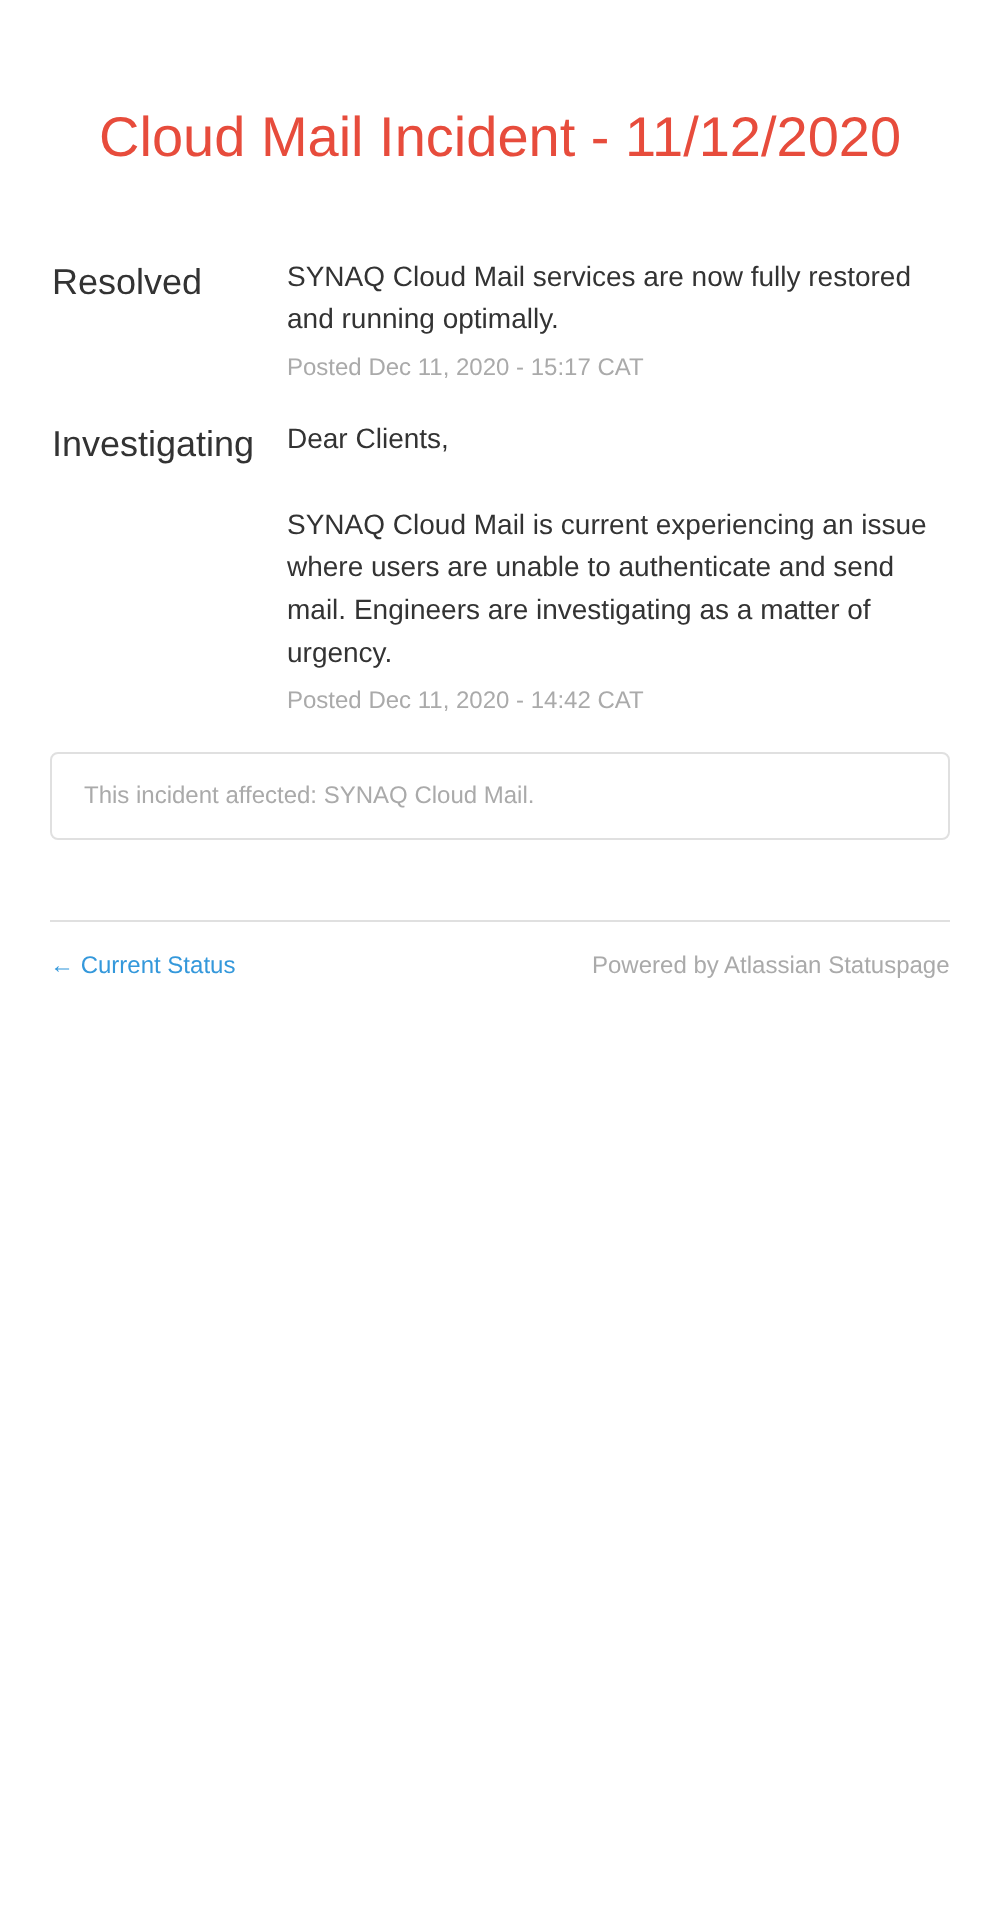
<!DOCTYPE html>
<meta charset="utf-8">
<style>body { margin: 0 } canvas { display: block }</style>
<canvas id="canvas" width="1000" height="1928"></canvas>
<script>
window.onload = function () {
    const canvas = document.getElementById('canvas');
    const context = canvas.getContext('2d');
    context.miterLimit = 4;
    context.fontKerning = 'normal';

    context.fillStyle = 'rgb(255, 255, 255)';
    context.fillRect(0, 0, 1000, 1928);
    context.beginPath();
    context.roundRect(51, 753, 898, 86, 7);
    context.strokeStyle = 'rgb(224, 224, 224)';
    context.lineWidth = 2;
    context.stroke();
    context.fillStyle = 'rgb(224, 224, 224)';
    context.fillRect(50, 920, 900, 2);
    context.font = '56px Liberation Sans';
    context.fillStyle = 'rgb(231, 76, 60)';
    context.fillText('Cloud Mail Incident - 11/12/2020', 99, 156);
    context.font = '36px Liberation Sans';
    context.fillStyle = 'rgb(51, 51, 51)';
    context.fillText('Resolved', 52, 294);
    context.font = '28px Liberation Sans';
    context.fillText('SYNAQ Cloud Mail services are now fully restored', 287, 286);
    context.fillText('and running optimally.', 287, 328);
    context.font = '24px Liberation Sans';
    context.fillStyle = 'rgb(170, 170, 170)';
    context.fillText('Posted Dec 11, 2020 - 15:17 CAT', 287, 375);
    context.font = '36px Liberation Sans';
    context.fillStyle = 'rgb(51, 51, 51)';
    context.fillText('Investigating', 52, 456);
    context.font = '28px Liberation Sans';
    context.fillText('Dear Clients,', 287, 448);
    context.fillText('SYNAQ Cloud Mail is current experiencing an issue', 287, 534);
    context.fillText('where users are unable to authenticate and send', 287, 576);
    context.fillText('mail. Engineers are investigating as a matter of', 287, 619);
    context.fillText('urgency.', 287, 662);
    context.font = '24px Liberation Sans';
    context.fillStyle = 'rgb(170, 170, 170)';
    context.fillText('Posted Dec 11, 2020 - 14:42 CAT', 287, 708);
    context.fillText('This incident affected: SYNAQ Cloud Mail.', 84, 803);
    context.fillStyle = 'rgb(52, 152, 219)';
    context.fillText('← Current Status', 50, 973);
    context.fillStyle = 'rgb(170, 170, 170)';
    context.fillText('Powered by Atlassian Statuspage', 592, 973);
};
</script>
